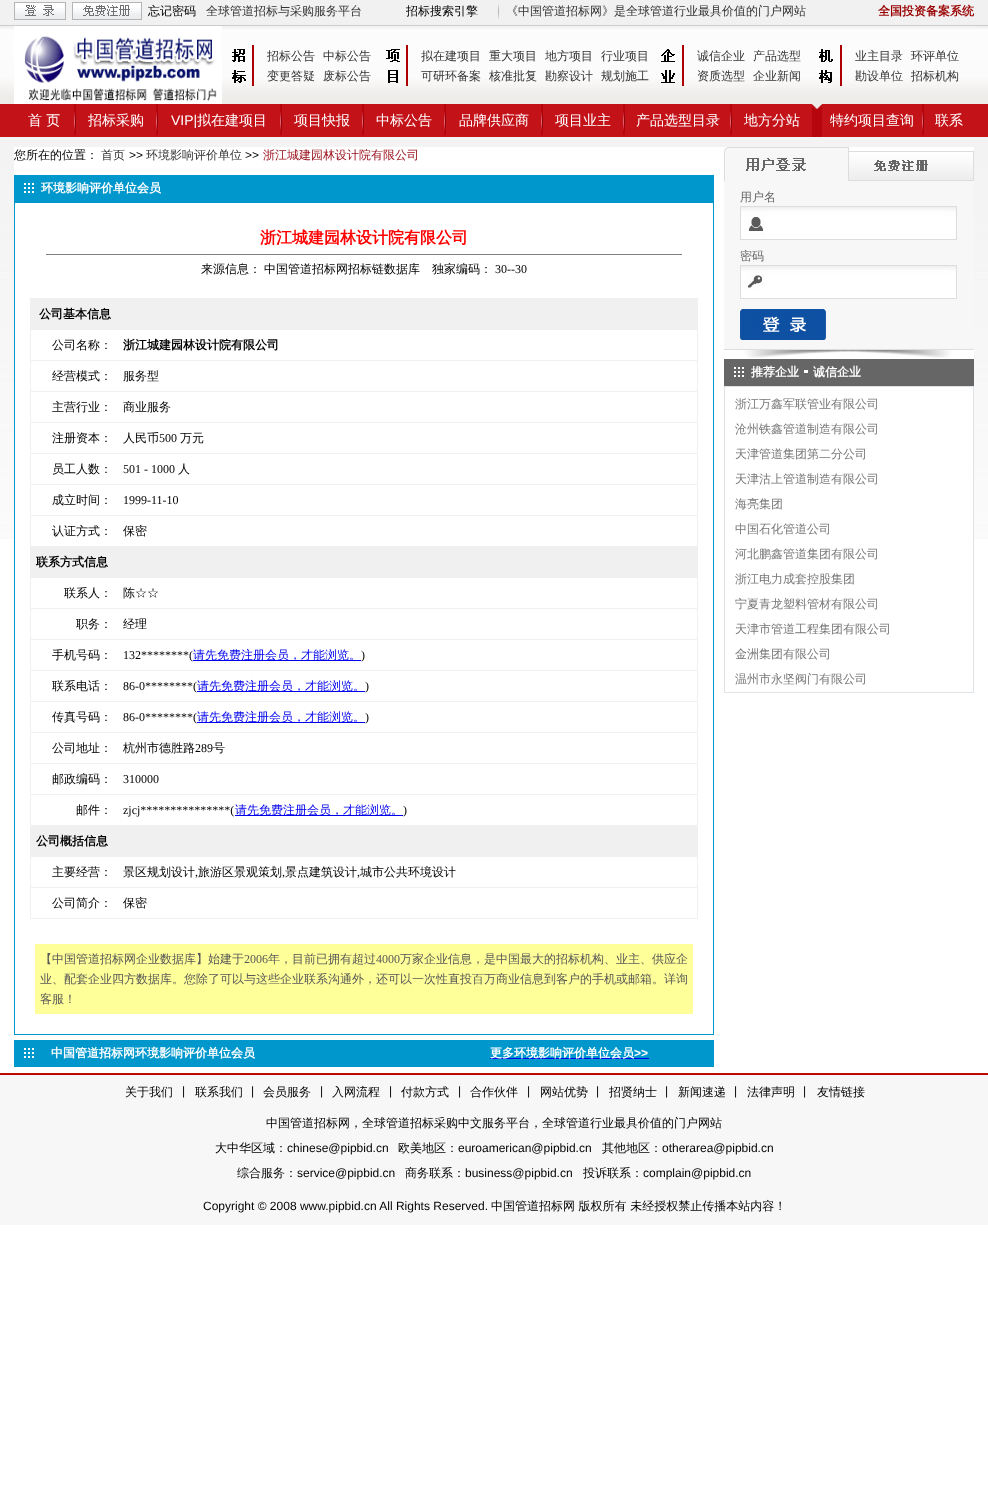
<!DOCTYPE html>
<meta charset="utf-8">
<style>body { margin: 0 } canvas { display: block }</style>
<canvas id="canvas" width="988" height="1495"></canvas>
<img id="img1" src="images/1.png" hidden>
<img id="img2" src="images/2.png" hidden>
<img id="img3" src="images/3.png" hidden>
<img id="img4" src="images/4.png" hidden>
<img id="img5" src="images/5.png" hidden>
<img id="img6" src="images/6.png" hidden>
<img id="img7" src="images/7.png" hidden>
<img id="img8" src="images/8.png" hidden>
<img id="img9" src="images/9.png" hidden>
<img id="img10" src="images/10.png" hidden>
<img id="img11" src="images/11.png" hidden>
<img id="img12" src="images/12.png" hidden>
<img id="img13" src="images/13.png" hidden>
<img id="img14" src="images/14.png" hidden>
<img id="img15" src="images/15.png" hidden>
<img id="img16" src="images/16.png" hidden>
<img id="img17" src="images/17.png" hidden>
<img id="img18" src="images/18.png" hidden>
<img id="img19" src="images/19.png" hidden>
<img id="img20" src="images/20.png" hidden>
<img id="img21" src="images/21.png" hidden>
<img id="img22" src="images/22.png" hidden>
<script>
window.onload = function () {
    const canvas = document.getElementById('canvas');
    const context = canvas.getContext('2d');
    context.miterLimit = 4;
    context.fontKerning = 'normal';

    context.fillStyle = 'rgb(255, 255, 255)';
    context.fillRect(0, 0, 988, 1495);
    context.drawImage(document.getElementById('img1'), 0, 0, 988, 539);
    context.fillStyle = 'rgb(204, 204, 204)';
    context.fillRect(0, 25, 988, 1);
    context.drawImage(document.getElementById('img2'), 14, 2, 52, 18);
    context.drawImage(document.getElementById('img3'), 72, 2, 70, 18);
    context.drawImage(document.getElementById('img4'), 498, 3, 1, 17);
    context.drawImage(document.getElementById('img5'), 0, 28, 988, 109);
    context.drawImage(document.getElementById('img6'), 222, 26, 752, 78);
    context.drawImage(document.getElementById('img7'), 14, 26, 208, 78);
    context.drawImage(document.getElementById('img8'), 232, 45, 22, 41);
    context.drawImage(document.getElementById('img9'), 386, 45, 22, 41);
    context.drawImage(document.getElementById('img10'), 661, 45, 23, 41);
    context.drawImage(document.getElementById('img11'), 819, 45, 23, 41);
    context.drawImage(document.getElementById('img12'), 74, 104, 2, 31);
    context.drawImage(document.getElementById('img12'), 156, 104, 2, 31);
    context.drawImage(document.getElementById('img12'), 280, 104, 2, 31);
    context.drawImage(document.getElementById('img12'), 362, 104, 2, 31);
    context.drawImage(document.getElementById('img12'), 444, 104, 2, 31);
    context.drawImage(document.getElementById('img12'), 541, 104, 2, 31);
    context.drawImage(document.getElementById('img12'), 623, 104, 2, 31);
    context.drawImage(document.getElementById('img12'), 730, 104, 2, 31);
    context.drawImage(document.getElementById('img13'), 812, 104, 10, 33);
    context.drawImage(document.getElementById('img12'), 922, 104, 2, 31);
    context.fillStyle = 'rgb(255, 255, 255)';
    context.fillRect(14, 147, 960, 392);
    context.fillStyle = 'rgb(0, 152, 204)';
    context.fillRect(14, 175, 700, 27);
    context.drawImage(document.getElementById('img14'), 24, 183, 10, 10);
    context.strokeStyle = 'rgb(0, 152, 204)';
    context.strokeRect(14.5, 202.5, 699, 832);
    context.fillStyle = 'rgb(128, 128, 128)';
    context.fillRect(46, 254, 636, 1);
    context.fillStyle = 'rgb(240, 240, 240)';
    context.fillRect(30, 298, 668, 621);
    context.fillStyle = 'rgb(255, 255, 255)';
    context.fillRect(31, 330, 666, 30);
    context.fillRect(31, 361, 666, 30);
    context.fillRect(31, 392, 666, 30);
    context.fillRect(31, 423, 666, 30);
    context.fillRect(31, 454, 666, 30);
    context.fillRect(31, 485, 666, 30);
    context.fillRect(31, 516, 666, 30);
    context.fillRect(31, 578, 666, 30);
    context.fillRect(31, 609, 666, 30);
    context.fillRect(31, 640, 666, 30);
    context.fillRect(31, 671, 666, 30);
    context.fillRect(31, 702, 666, 30);
    context.fillRect(31, 733, 666, 30);
    context.fillRect(31, 764, 666, 30);
    context.fillRect(31, 795, 666, 30);
    context.fillStyle = 'rgb(0, 0, 238)';
    context.fillRect(235, 815, 168, 1);
    context.fillStyle = 'rgb(255, 255, 255)';
    context.fillRect(31, 857, 666, 30);
    context.fillRect(31, 888, 666, 30);
    context.fillStyle = 'rgb(255, 255, 153)';
    context.fillRect(35, 944, 658, 70);
    context.fillStyle = 'rgb(0, 152, 204)';
    context.fillRect(14, 1040, 700, 27);
    context.drawImage(document.getElementById('img14'), 24, 1048, 10, 10);
    context.fillStyle = 'rgb(0, 0, 238)';
    context.fillRect(490, 1058, 159, 1);
    context.drawImage(document.getElementById('img15'), 724, 147, 125, 34);
    context.drawImage(document.getElementById('img16'), 849, 151, 125, 30);
    context.fillStyle = 'rgb(247, 247, 247)';
    context.fillRect(724, 181, 250, 168);
    context.drawImage(document.getElementById('img17'), 740, 206, 217, 34);
    context.fillStyle = 'rgb(255, 255, 255)';
    context.fillRect(768, 211, 180, 1);
    context.drawImage(document.getElementById('img18'), 740, 265, 217, 34);
    context.fillRect(768, 270, 180, 1);
    context.drawImage(document.getElementById('img19'), 740, 309, 86, 31);
    context.drawImage(document.getElementById('img20'), 724, 349, 250, 9);
    context.fillStyle = 'rgb(102, 102, 102)';
    context.fillRect(724, 359, 250, 27);
    context.drawImage(document.getElementById('img21'), 734, 367, 10, 10);
    context.fillStyle = 'rgb(255, 255, 255)';
    context.fillRect(804, 370, 4, 3);
    context.strokeStyle = 'rgb(222, 227, 231)';
    context.strokeRect(724.5, 386.5, 249, 306);
    context.drawImage(document.getElementById('img22'), 0, 1073, 988, 152);
    context.font = '500 12px WenQuanYi Zen Hei';
    context.fillStyle = 'rgb(0, 0, 0)';
    context.fillText('忘记密码', 148, 15);
    context.fillStyle = 'rgb(51, 51, 51)';
    context.fillText('全球管道招标与采购服务平台', 206, 15);
    context.fillStyle = 'rgb(0, 0, 0)';
    context.fillText('招标搜索引擎', 406, 15);
    context.fillStyle = 'rgb(51, 51, 51)';
    context.fillText('《中国管道招标网》是全球管道行业最具价值的门户网站', 506, 15);
    context.font = 'bold 12px WenQuanYi Zen Hei';
    context.fillStyle = 'rgb(153, 0, 0)';
    context.fillText('全国投资备案系统', 878, 15);
    context.font = '500 12px WenQuanYi Zen Hei';
    context.fillStyle = 'rgb(51, 51, 51)';
    context.fillText('招标公告', 267, 60);
    context.fillText('中标公告', 323, 60);
    context.fillText('变更答疑', 267, 80);
    context.fillText('废标公告', 323, 80);
    context.fillText('拟在建项目', 421, 60);
    context.fillText('重大项目', 489, 60);
    context.fillText('地方项目', 545, 60);
    context.fillText('行业项目', 601, 60);
    context.fillText('可研环备案', 421, 80);
    context.fillText('核准批复', 489, 80);
    context.fillText('勘察设计', 545, 80);
    context.fillText('规划施工', 601, 80);
    context.fillText('诚信企业', 697, 60);
    context.fillText('产品选型', 753, 60);
    context.fillText('资质选型', 697, 80);
    context.fillText('企业新闻', 753, 80);
    context.fillText('业主目录', 855, 60);
    context.fillText('环评单位', 911, 60);
    context.fillText('勘设单位', 855, 80);
    context.fillText('招标机构', 911, 80);
    context.font = '500 14px WenQuanYi Zen Hei';
    context.fillStyle = 'rgb(255, 255, 255)';
    context.fillText('首 页', 28, 125);
    context.fillText('招标采购', 88, 125);
    context.font = '14px Liberation Sans';
    context.fillText('VIP|', 171, 125);
    context.font = '500 14px WenQuanYi Zen Hei';
    context.fillText('拟在建项目', 197, 125);
    context.fillText('项目快报', 294, 125);
    context.fillText('中标公告', 376, 125);
    context.fillText('品牌供应商', 459, 125);
    context.fillText('项目业主', 555, 125);
    context.fillText('产品选型目录', 636, 125);
    context.fillText('地方分站', 744, 125);
    context.fillText('特约项目查询', 830, 125);
    context.fillText('联系', 935, 125);
    context.font = '500 12px WenQuanYi Zen Hei';
    context.fillStyle = 'rgb(0, 0, 0)';
    context.fillText('您所在的位置：', 14, 159);
    context.fillStyle = 'rgb(51, 51, 51)';
    context.fillText('首页', 101, 159);
    context.font = '12px Liberation Sans';
    context.fillStyle = 'rgb(0, 0, 0)';
    context.fillText('>>', 129, 159);
    context.font = '500 12px WenQuanYi Zen Hei';
    context.fillStyle = 'rgb(51, 51, 51)';
    context.fillText('环境影响评价单位', 146, 159);
    context.font = '12px Liberation Sans';
    context.fillStyle = 'rgb(0, 0, 0)';
    context.fillText('>>', 245, 159);
    context.font = '500 12px WenQuanYi Zen Hei';
    context.fillStyle = 'rgb(151, 11, 22)';
    context.fillText('浙江城建园林设计院有限公司', 263, 159);
    context.font = 'bold 12px WenQuanYi Zen Hei';
    context.fillStyle = 'rgb(255, 255, 255)';
    context.fillText('环境影响评价单位会员', 41, 192);
    context.font = 'bold 16px WenQuanYi Zen Hei';
    context.fillStyle = 'rgb(255, 0, 0)';
    context.fillText('浙江城建园林设计院有限公司', 260, 243);
    context.font = '500 12px WenQuanYi Zen Hei';
    context.fillStyle = 'rgb(0, 0, 0)';
    context.fillText('来源信息：', 201, 273);
    context.fillText('中国管道招标网招标链数据库', 264, 273);
    context.fillText('独家编码：', 432, 273);
    context.font = '12px Liberation Serif';
    context.fillText('30--30', 495, 273);
    context.font = 'bold 12px WenQuanYi Zen Hei';
    context.fillText('公司基本信息', 39, 318);
    context.font = '500 12px WenQuanYi Zen Hei';
    context.fillText('公司名称：', 52, 349);
    context.font = 'bold 12px WenQuanYi Zen Hei';
    context.fillText('浙江城建园林设计院有限公司', 123, 349);
    context.font = '500 12px WenQuanYi Zen Hei';
    context.fillText('经营模式：', 52, 380);
    context.fillText('服务型', 123, 380);
    context.fillText('主营行业：', 52, 411);
    context.fillText('商业服务', 123, 411);
    context.fillText('注册资本：', 52, 442);
    context.fillText('人民币', 123, 442);
    context.font = '12px Liberation Serif';
    context.fillText('500', 159, 442);
    context.font = '500 12px WenQuanYi Zen Hei';
    context.fillText('万元', 180, 442);
    context.fillText('员工人数：', 52, 473);
    context.font = '12px Liberation Serif';
    context.fillText('501 - 1000', 123, 473);
    context.font = '500 12px WenQuanYi Zen Hei';
    context.fillText('人', 178, 473);
    context.fillText('成立时间：', 52, 504);
    context.font = '12px Liberation Serif';
    context.fillText('1999-11-10', 123, 504);
    context.font = '500 12px WenQuanYi Zen Hei';
    context.fillText('认证方式：', 52, 535);
    context.fillText('保密', 123, 535);
    context.font = 'bold 12px WenQuanYi Zen Hei';
    context.fillText('联系方式信息', 36, 566);
    context.font = '500 12px WenQuanYi Zen Hei';
    context.fillText('联系人：', 64, 597);
    context.fillText('陈☆☆', 123, 597);
    context.fillText('职务：', 76, 628);
    context.fillText('经理', 123, 628);
    context.fillText('手机号码：', 52, 659);
    context.font = '12px Liberation Serif';
    context.fillText('132********(', 123, 659);
    context.fillStyle = 'rgb(0, 0, 238)';
    context.fillRect(193, 660, 168, 1);
    context.font = '500 12px WenQuanYi Zen Hei';
    context.fillText('请先免费注册会员，才能浏览。', 193, 659);
    context.font = '12px Liberation Serif';
    context.fillStyle = 'rgb(0, 0, 0)';
    context.fillText(')', 361, 659);
    context.font = '500 12px WenQuanYi Zen Hei';
    context.fillText('联系电话：', 52, 690);
    context.font = '12px Liberation Serif';
    context.fillText('86-0********(', 123, 690);
    context.fillStyle = 'rgb(0, 0, 238)';
    context.fillRect(197, 691, 168, 1);
    context.font = '500 12px WenQuanYi Zen Hei';
    context.fillText('请先免费注册会员，才能浏览。', 197, 690);
    context.font = '12px Liberation Serif';
    context.fillStyle = 'rgb(0, 0, 0)';
    context.fillText(')', 365, 690);
    context.font = '500 12px WenQuanYi Zen Hei';
    context.fillText('传真号码：', 52, 721);
    context.font = '12px Liberation Serif';
    context.fillText('86-0********(', 123, 721);
    context.fillStyle = 'rgb(0, 0, 238)';
    context.fillRect(197, 722, 168, 1);
    context.font = '500 12px WenQuanYi Zen Hei';
    context.fillText('请先免费注册会员，才能浏览。', 197, 721);
    context.font = '12px Liberation Serif';
    context.fillStyle = 'rgb(0, 0, 0)';
    context.fillText(')', 365, 721);
    context.font = '500 12px WenQuanYi Zen Hei';
    context.fillText('公司地址：', 52, 752);
    context.fillText('杭州市德胜路', 123, 752);
    context.font = '12px Liberation Serif';
    context.fillText('289', 195, 752);
    context.font = '500 12px WenQuanYi Zen Hei';
    context.fillText('号', 213, 752);
    context.fillText('邮政编码：', 52, 783);
    context.font = '12px Liberation Serif';
    context.fillText('310000', 123, 783);
    context.font = '500 12px WenQuanYi Zen Hei';
    context.fillText('邮件：', 76, 814);
    context.font = '12px Liberation Serif';
    context.fillText('zjcj***************(', 123, 814);
    context.font = '500 12px WenQuanYi Zen Hei';
    context.fillStyle = 'rgb(0, 0, 238)';
    context.fillText('请先免费注册会员，才能浏览。', 235, 814);
    context.font = '12px Liberation Serif';
    context.fillStyle = 'rgb(0, 0, 0)';
    context.fillText(')', 403, 814);
    context.font = 'bold 12px WenQuanYi Zen Hei';
    context.fillText('公司概括信息', 36, 845);
    context.font = '500 12px WenQuanYi Zen Hei';
    context.fillText('主要经营：', 52, 876);
    context.fillText('景区规划设计', 123, 876);
    context.font = '12px Liberation Serif';
    context.fillText(',', 195, 876);
    context.font = '500 12px WenQuanYi Zen Hei';
    context.fillText('旅游区景观策划', 198, 876);
    context.font = '12px Liberation Serif';
    context.fillText(',', 282, 876);
    context.font = '500 12px WenQuanYi Zen Hei';
    context.fillText('景点建筑设计', 285, 876);
    context.font = '12px Liberation Serif';
    context.fillText(',', 357, 876);
    context.font = '500 12px WenQuanYi Zen Hei';
    context.fillText('城市公共环境设计', 360, 876);
    context.fillText('公司简介：', 52, 907);
    context.fillText('保密', 123, 907);
    context.fillStyle = 'rgb(88, 88, 88)';
    context.fillText('【中国管道招标网企业数据库】始建于', 40, 963);
    context.font = '12px Liberation Serif';
    context.fillText('2006', 244, 963);
    context.font = '500 12px WenQuanYi Zen Hei';
    context.fillText('年，目前已拥有超过', 268, 963);
    context.font = '12px Liberation Serif';
    context.fillText('4000', 376, 963);
    context.font = '500 12px WenQuanYi Zen Hei';
    context.fillText('万家企业信息，是中国最大的招标机构、业主、供应企', 400, 963);
    context.fillText('业、配套企业四方数据库。您除了可以与这些企业联系沟通外，还可以一次性直投百万商业信息到客户的手机或邮箱。详询', 40, 983);
    context.fillText('客服！', 40, 1003);
    context.font = 'bold 12px WenQuanYi Zen Hei';
    context.fillStyle = 'rgb(255, 255, 255)';
    context.fillText('中国管道招标网环境影响评价单位会员', 51, 1057);
    context.fillText('更多环境影响评价单位会员', 490, 1057);
    context.font = 'bold 12px Liberation Sans';
    context.fillText('>>', 634, 1057);
    context.font = '500 12px WenQuanYi Zen Hei';
    context.fillStyle = 'rgb(102, 102, 102)';
    context.fillText('用户名', 740, 201);
    context.fillText('密码', 740, 260);
    context.font = 'bold 12px WenQuanYi Zen Hei';
    context.fillStyle = 'rgb(255, 255, 255)';
    context.fillText('推荐企业', 751, 376);
    context.fillText('诚信企业', 813, 376);
    context.font = '500 12px WenQuanYi Zen Hei';
    context.fillStyle = 'rgb(119, 119, 119)';
    context.fillText('浙江万鑫军联管业有限公司', 735, 408);
    context.fillText('沧州铁鑫管道制造有限公司', 735, 433);
    context.fillText('天津管道集团第二分公司', 735, 458);
    context.fillText('天津沽上管道制造有限公司', 735, 483);
    context.fillText('海亮集团', 735, 508);
    context.fillText('中国石化管道公司', 735, 533);
    context.fillText('河北鹏鑫管道集团有限公司', 735, 558);
    context.fillText('浙江电力成套控股集团', 735, 583);
    context.fillText('宁夏青龙塑料管材有限公司', 735, 608);
    context.fillText('天津市管道工程集团有限公司', 735, 633);
    context.fillText('金洲集团有限公司', 735, 658);
    context.fillText('温州市永坚阀门有限公司', 735, 683);
    context.fillStyle = 'rgb(0, 0, 0)';
    context.fillText('关于我们', 125, 1096);
    context.font = '12px Liberation Sans';
    context.fillText('|', 182, 1095);
    context.font = '500 12px WenQuanYi Zen Hei';
    context.fillText('联系我们', 195, 1096);
    context.font = '12px Liberation Sans';
    context.fillText('|', 251, 1095);
    context.font = '500 12px WenQuanYi Zen Hei';
    context.fillText('会员服务', 263, 1096);
    context.font = '12px Liberation Sans';
    context.fillText('|', 320, 1095);
    context.font = '500 12px WenQuanYi Zen Hei';
    context.fillText('入网流程', 332, 1096);
    context.font = '12px Liberation Sans';
    context.fillText('|', 389, 1095);
    context.font = '500 12px WenQuanYi Zen Hei';
    context.fillText('付款方式', 401, 1096);
    context.font = '12px Liberation Sans';
    context.fillText('|', 458, 1095);
    context.font = '500 12px WenQuanYi Zen Hei';
    context.fillText('合作伙伴', 470, 1096);
    context.font = '12px Liberation Sans';
    context.fillText('|', 527, 1095);
    context.font = '500 12px WenQuanYi Zen Hei';
    context.fillText('网站优势', 540, 1096);
    context.font = '12px Liberation Sans';
    context.fillText('|', 596, 1095);
    context.font = '500 12px WenQuanYi Zen Hei';
    context.fillText('招贤纳士', 609, 1096);
    context.font = '12px Liberation Sans';
    context.fillText('|', 665, 1095);
    context.font = '500 12px WenQuanYi Zen Hei';
    context.fillText('新闻速递', 678, 1096);
    context.font = '12px Liberation Sans';
    context.fillText('|', 734, 1095);
    context.font = '500 12px WenQuanYi Zen Hei';
    context.fillText('法律声明', 747, 1096);
    context.font = '12px Liberation Sans';
    context.fillText('|', 803, 1095);
    context.font = '500 12px WenQuanYi Zen Hei';
    context.fillText('友情链接', 817, 1096);
    context.fillText('中国管道招标网，全球管道招标采购中文服务平台，全球管道行业最具价值的门户网站', 266, 1127);
    context.fillText('大中华区域：', 215, 1152);
    context.font = '12px Liberation Sans';
    context.fillText('chinese@pipbid.cn', 287, 1152);
    context.font = '500 12px WenQuanYi Zen Hei';
    context.fillText('欧美地区：', 398, 1152);
    context.font = '12px Liberation Sans';
    context.fillText('euroamerican@pipbid.cn', 458, 1152);
    context.font = '500 12px WenQuanYi Zen Hei';
    context.fillText('其他地区：', 602, 1152);
    context.font = '12px Liberation Sans';
    context.fillText('otherarea@pipbid.cn', 662, 1152);
    context.font = '500 12px WenQuanYi Zen Hei';
    context.fillText('综合服务：', 237, 1177);
    context.font = '12px Liberation Sans';
    context.fillText('service@pipbid.cn', 297, 1177);
    context.font = '500 12px WenQuanYi Zen Hei';
    context.fillText('商务联系：', 405, 1177);
    context.font = '12px Liberation Sans';
    context.fillText('business@pipbid.cn', 465, 1177);
    context.font = '500 12px WenQuanYi Zen Hei';
    context.fillText('投诉联系：', 583, 1177);
    context.font = '12px Liberation Sans';
    context.fillText('complain@pipbid.cn', 643, 1177);
    context.fillText('Copyright © 2008 www.pipbid.cn All Rights Reserved.', 203, 1210);
    context.font = '500 12px WenQuanYi Zen Hei';
    context.fillText('中国管道招标网 版权所有 未经授权禁止传播本站内容！', 491, 1210);
};
</script>
